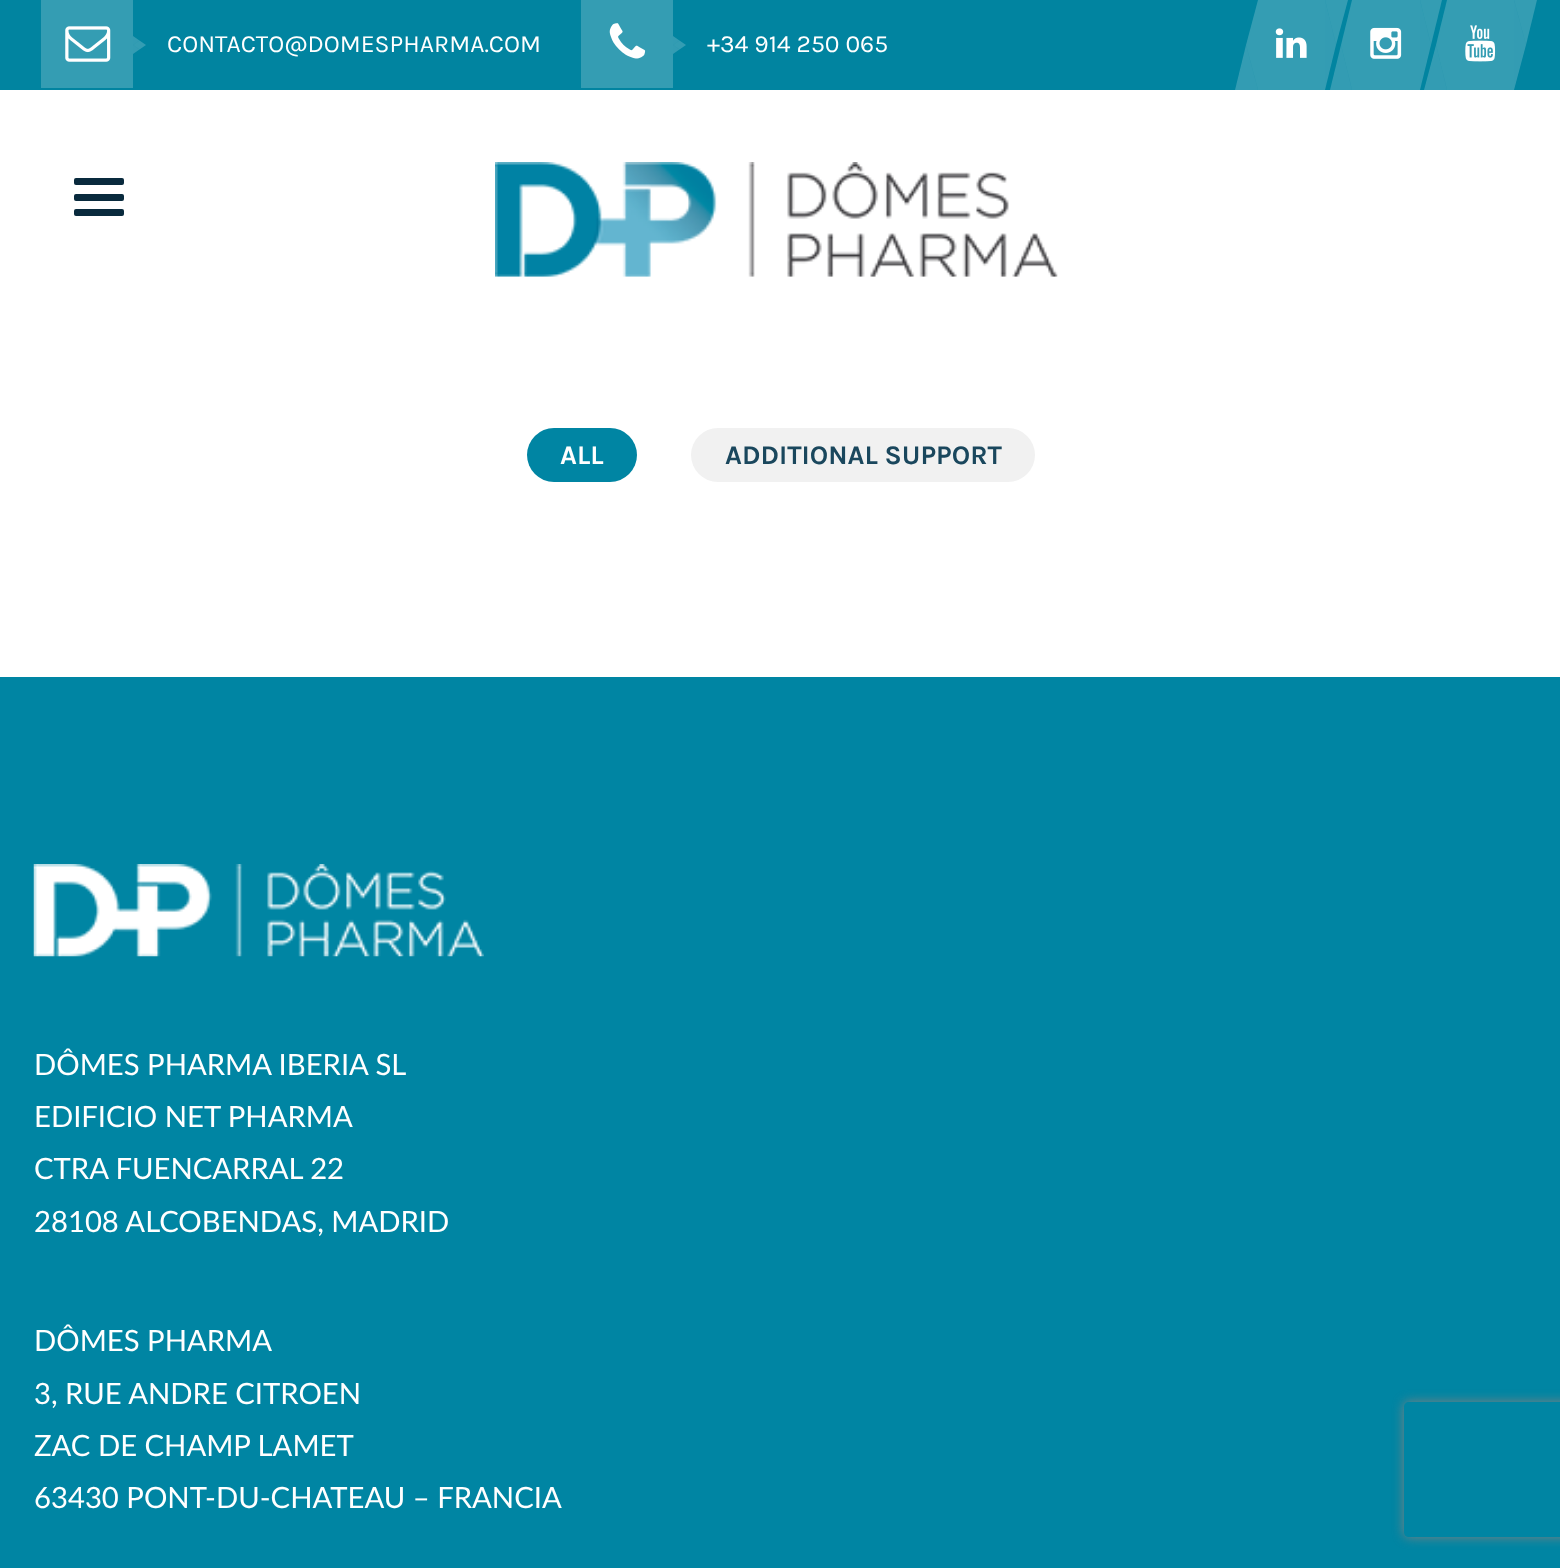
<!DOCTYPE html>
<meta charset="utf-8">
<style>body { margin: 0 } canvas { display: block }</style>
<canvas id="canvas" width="1560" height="1568"></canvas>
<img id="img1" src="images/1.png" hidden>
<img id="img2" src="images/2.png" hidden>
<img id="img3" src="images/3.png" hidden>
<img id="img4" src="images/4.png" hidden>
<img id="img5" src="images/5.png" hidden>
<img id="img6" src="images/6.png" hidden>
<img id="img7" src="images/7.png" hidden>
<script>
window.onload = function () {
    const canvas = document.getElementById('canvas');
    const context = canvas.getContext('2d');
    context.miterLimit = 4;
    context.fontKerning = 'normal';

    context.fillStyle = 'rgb(255, 255, 255)';
    context.fillRect(0, 0, 1560, 1568);
    context.fillStyle = 'rgb(1, 132, 160)';
    context.fillRect(0, 0, 1560, 90);
    context.fillStyle = 'rgb(52, 157, 179)';
    context.fillRect(41, 0, 92, 88);
    context.drawImage(document.getElementById('img1'), 65, 26, 46, 36);
    context.beginPath();
    context.moveTo(146, 45);
    context.lineTo(133, 45);
    context.lineTo(139.5, 40.5);
    context.closePath();
    context.fill();
    context.fillStyle = 'rgba(255, 255, 255, 0.2)';
    context.beginPath();
    context.moveTo(133, 45);
    context.lineTo(133, 36);
    context.lineTo(139.5, 40.5);
    context.closePath();
    context.fill();
    context.fillStyle = 'rgb(52, 157, 179)';
    context.beginPath();
    context.moveTo(133, 45);
    context.lineTo(146, 45);
    context.lineTo(139.5, 49.5);
    context.closePath();
    context.fill();
    context.fillStyle = 'rgba(255, 255, 255, 0.2)';
    context.beginPath();
    context.moveTo(133, 54);
    context.lineTo(133, 45);
    context.lineTo(139.5, 49.5);
    context.closePath();
    context.fill();
    context.fillStyle = 'rgb(52, 157, 179)';
    context.fillRect(581, 0, 92, 88);
    context.drawImage(document.getElementById('img2'), 609, 23, 37, 36);
    context.beginPath();
    context.moveTo(686, 45);
    context.lineTo(673, 45);
    context.lineTo(679.5, 40.5);
    context.closePath();
    context.fill();
    context.fillStyle = 'rgba(255, 255, 255, 0.2)';
    context.beginPath();
    context.moveTo(673, 45);
    context.lineTo(673, 36);
    context.lineTo(679.5, 40.5);
    context.closePath();
    context.fill();
    context.fillStyle = 'rgb(52, 157, 179)';
    context.beginPath();
    context.moveTo(673, 45);
    context.lineTo(686, 45);
    context.lineTo(679.5, 49.5);
    context.closePath();
    context.fill();
    context.fillStyle = 'rgba(255, 255, 255, 0.2)';
    context.beginPath();
    context.moveTo(673, 54);
    context.lineTo(673, 45);
    context.lineTo(679.5, 49.5);
    context.closePath();
    context.fill();
    context.fillStyle = 'rgb(52, 157, 179)';
    context.fillRect(1258, 0, 67, 90);
    context.beginPath();
    context.moveTo(1258, 0);
    context.lineTo(1258, 90);
    context.lineTo(1246, 45);
    context.closePath();
    context.fill();
    context.fillStyle = 'rgba(255, 255, 255, 0.2)';
    context.beginPath();
    context.moveTo(1258, 90);
    context.lineTo(1235, 90);
    context.lineTo(1246, 45);
    context.closePath();
    context.fill();
    context.drawImage(document.getElementById('img3'), 1275, 28, 32, 30);
    context.fillStyle = 'rgb(52, 157, 179)';
    context.beginPath();
    context.moveTo(1325, 0);
    context.lineTo(1348, 0);
    context.lineTo(1336, 45);
    context.closePath();
    context.fill();
    context.fillStyle = 'rgba(255, 255, 255, 0.2)';
    context.beginPath();
    context.moveTo(1325, 90);
    context.lineTo(1325, 0);
    context.lineTo(1336, 45);
    context.closePath();
    context.fill();
    context.fillStyle = 'rgb(52, 157, 179)';
    context.fillRect(1352, 0, 68, 90);
    context.beginPath();
    context.moveTo(1352, 0);
    context.lineTo(1352, 90);
    context.lineTo(1341, 45);
    context.closePath();
    context.fill();
    context.fillStyle = 'rgba(255, 255, 255, 0.2)';
    context.beginPath();
    context.moveTo(1352, 90);
    context.lineTo(1330, 90);
    context.lineTo(1341, 45);
    context.closePath();
    context.fill();
    context.drawImage(document.getElementById('img4'), 1370, 27, 32, 32);
    context.fillStyle = 'rgb(52, 157, 179)';
    context.beginPath();
    context.moveTo(1420, 0);
    context.lineTo(1442, 0);
    context.lineTo(1431, 45);
    context.closePath();
    context.fill();
    context.fillStyle = 'rgba(255, 255, 255, 0.2)';
    context.beginPath();
    context.moveTo(1420, 90);
    context.lineTo(1420, 0);
    context.lineTo(1431, 45);
    context.closePath();
    context.fill();
    context.fillStyle = 'rgb(52, 157, 179)';
    context.fillRect(1447, 0, 67, 90);
    context.beginPath();
    context.moveTo(1447, 0);
    context.lineTo(1447, 90);
    context.lineTo(1436, 45);
    context.closePath();
    context.fill();
    context.fillStyle = 'rgba(255, 255, 255, 0.2)';
    context.beginPath();
    context.moveTo(1447, 90);
    context.lineTo(1424, 90);
    context.lineTo(1436, 45);
    context.closePath();
    context.fill();
    context.drawImage(document.getElementById('img5'), 1465, 25, 31, 37);
    context.fillStyle = 'rgb(52, 157, 179)';
    context.beginPath();
    context.moveTo(1514, 0);
    context.lineTo(1537, 0);
    context.lineTo(1526, 45);
    context.closePath();
    context.fill();
    context.fillStyle = 'rgba(255, 255, 255, 0.2)';
    context.beginPath();
    context.moveTo(1514, 90);
    context.lineTo(1514, 0);
    context.lineTo(1526, 45);
    context.closePath();
    context.fill();
    context.fillStyle = 'rgb(9, 42, 61)';
    context.beginPath();
    context.roundRect(74, 178, 50, 7, 2);
    context.fill();
    context.beginPath();
    context.roundRect(74, 194, 50, 7, 2);
    context.fill();
    context.beginPath();
    context.roundRect(74, 209, 50, 7, 2);
    context.fill();
    context.drawImage(document.getElementById('img6'), 495, 162, 563, 115);
    context.fillStyle = 'rgb(0, 133, 163)';
    context.beginPath();
    context.roundRect(527, 428, 110, 54, 27);
    context.fill();
    context.fillStyle = 'rgb(241, 241, 241)';
    context.beginPath();
    context.roundRect(691, 428, 344, 54, 27);
    context.fill();
    context.fillStyle = 'rgb(0, 133, 163)';
    context.fillRect(0, 677, 1560, 891);
    context.drawImage(document.getElementById('img7'), 33, 864, 451, 93);
    context.save();
    context.beginPath();
    context.moveTo(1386, 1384);
    context.lineTo(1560, 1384);
    context.lineTo(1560, 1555);
    context.lineTo(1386, 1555);
    context.closePath();
    context.moveTo(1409, 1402);
    context.lineTo(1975, 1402);
    context.bezierCurveTo(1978, 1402, 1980, 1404, 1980, 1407);
    context.lineTo(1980, 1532);
    context.bezierCurveTo(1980, 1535, 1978, 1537, 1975, 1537);
    context.lineTo(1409, 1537);
    context.bezierCurveTo(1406, 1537, 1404, 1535, 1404, 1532);
    context.lineTo(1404, 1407);
    context.bezierCurveTo(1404, 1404, 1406, 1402, 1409, 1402);
    context.closePath();
    context.clip('evenodd');
    context.fillStyle = 'rgb(128, 128, 128)';
    context.filter = 'blur(5.5px)';
    context.beginPath();
    context.roundRect(1404, 1402, 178, 135, 5);
    context.fill();
    context.filter = 'none';
    context.restore();
    context.font = '24.75px Karla';
    context.fillStyle = 'rgb(255, 255, 255)';
    context.fillText('CONTACTO@DOMESPHARMA.COM', 167, 52);
    context.fillText('+34 914 250 065', 707, 52);
    context.font = 'bold 27px Karla';
    context.fillText('ALL', 560, 464);
    context.fillStyle = 'rgb(26, 71, 93)';
    context.fillText('ADDITIONAL SUPPORT', 725, 464);
    context.font = '29.25px Lato';
    context.fillStyle = 'rgb(255, 255, 255)';
    context.fillText('DÔMES PHARMA IBERIA SL', 34, 1075);
    context.fillText('EDIFICIO NET PHARMA', 34, 1127);
    context.fillText('CTRA FUENCARRAL 22', 34, 1179);
    context.fillText('28108 ALCOBENDAS, MADRID', 34, 1232);
    context.fillText('DÔMES PHARMA', 34, 1351);
    context.fillText('3, RUE ANDRE CITROEN', 34, 1404);
    context.fillText('ZAC DE CHAMP LAMET', 34, 1456);
    context.fillText('63430 PONT-DU-CHATEAU – FRANCIA', 34, 1508);
};
</script>
